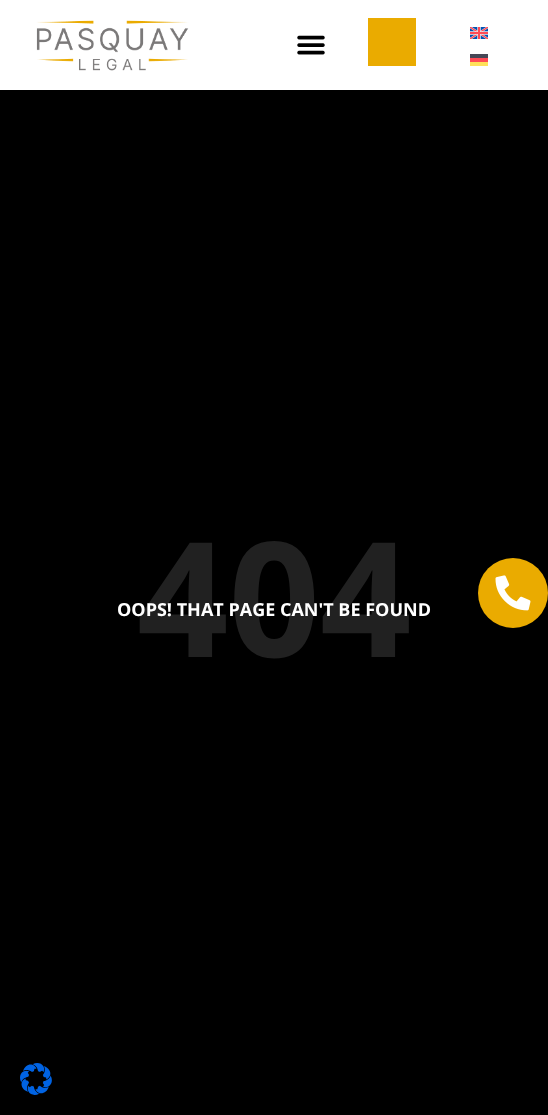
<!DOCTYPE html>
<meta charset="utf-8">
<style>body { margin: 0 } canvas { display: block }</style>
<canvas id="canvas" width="548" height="1115"></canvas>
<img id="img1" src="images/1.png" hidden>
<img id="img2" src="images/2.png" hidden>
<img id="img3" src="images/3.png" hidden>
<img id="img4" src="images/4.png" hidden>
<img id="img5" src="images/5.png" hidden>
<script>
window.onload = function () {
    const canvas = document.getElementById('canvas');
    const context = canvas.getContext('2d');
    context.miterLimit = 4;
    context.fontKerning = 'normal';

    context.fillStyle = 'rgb(255, 255, 255)';
    context.fillRect(0, 0, 548, 1115);
    context.drawImage(document.getElementById('img1'), 36, 20, 153, 51);
    context.drawImage(document.getElementById('img2'), 297, 35, 28, 20);
    context.fillStyle = 'rgb(234, 171, 0)';
    context.fillRect(368, 18, 48, 48);
    context.drawImage(document.getElementById('img3'), 470, 27, 18, 12);
    context.fillStyle = 'rgb(70, 70, 85)';
    context.fillRect(470, 54, 18, 4);
    context.fillStyle = 'rgb(255, 75, 85)';
    context.fillRect(470, 58, 18, 4);
    context.fillStyle = 'rgb(255, 225, 90)';
    context.fillRect(470, 62, 18, 4);
    context.fillStyle = 'rgb(0, 0, 0)';
    context.fillRect(0, 90, 548, 1025);
    context.fillStyle = 'rgb(234, 171, 0)';
    context.beginPath();
    context.arc(513, 593, 35, 0, 2 * Math.PI);
    context.fill();
    context.drawImage(document.getElementById('img4'), 495, 575, 36, 36);
    context.drawImage(document.getElementById('img5'), 20, 1063, 32, 32);
    context.font = 'bold 160px Open Sans';
    context.fillStyle = 'rgb(33, 33, 33)';
    context.fillText('404', 137, 657);
    context.font = 'bold 18px Open Sans';
    context.fillStyle = 'rgb(255, 255, 255)';
    context.fillText('OOPS! THAT PAGE CAN\'T BE FOUND', 117, 616);
};
</script>
